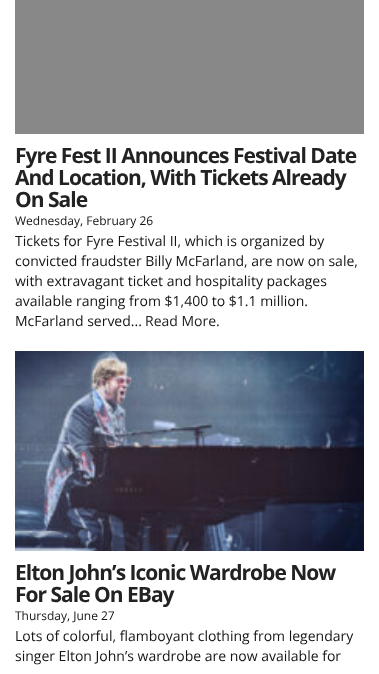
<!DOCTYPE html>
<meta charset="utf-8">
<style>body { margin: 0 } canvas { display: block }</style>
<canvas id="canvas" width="379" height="674"></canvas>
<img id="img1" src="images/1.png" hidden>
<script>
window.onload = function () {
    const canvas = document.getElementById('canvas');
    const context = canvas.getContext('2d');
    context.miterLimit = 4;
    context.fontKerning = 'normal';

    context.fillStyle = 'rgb(255, 255, 255)';
    context.fillRect(0, 0, 379, 674);
    context.save();
    context.beginPath();
    context.rect(15, 0, 349, 134);
    context.clip();
    context.fillStyle = 'rgb(136, 136, 136)';
    context.beginPath();
    context.moveTo(248, -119);
    context.lineTo(15, -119);
    context.lineTo(15, 346);
    context.lineTo(364, 346);
    context.lineTo(364, -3);
    context.closePath();
    context.moveTo(248, -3);
    context.lineTo(248, -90);
    context.lineTo(335, -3);
    context.closePath();
    context.fill();
    context.restore();
    context.drawImage(document.getElementById('img1'), 15, 351, 349, 200);
    context.letterSpacing = '-1px';
    context.font = 'bold 21px Open Sans';
    context.fillStyle = 'rgb(34, 34, 34)';
    context.fillText('Fyre Fest II Announces Festival Date', 15, 163);
    context.fillText('And Location, With Tickets Already', 15, 185);
    context.fillText('On Sale', 15, 207);
    context.letterSpacing = '0px';
    context.font = '12px Open Sans';
    context.fillStyle = 'rgb(20, 20, 20)';
    context.fillText('Wednesday, February 26', 15, 225);
    context.font = '14px Open Sans';
    context.fillText('Tickets for Fyre Festival II, which is organized by', 15, 246);
    context.fillText('convicted fraudster Billy McFarland, are now on sale,', 15, 266);
    context.fillText('with extravagant ticket and hospitality packages', 15, 286);
    context.fillText('available ranging from $1,400 to $1.1 million.', 15, 306);
    context.fillText('McFarland served...', 15, 326);
    context.fillStyle = 'rgb(34, 34, 34)';
    context.fillText('Read More.', 145, 326);
    context.letterSpacing = '-1px';
    context.font = 'bold 21px Open Sans';
    context.fillText('Elton John’s Iconic Wardrobe Now', 15, 580);
    context.fillText('For Sale On EBay', 15, 602);
    context.letterSpacing = '0px';
    context.font = '12px Open Sans';
    context.fillStyle = 'rgb(20, 20, 20)';
    context.fillText('Thursday, June 27', 15, 620);
    context.font = '14px Open Sans';
    context.fillText('Lots of colorful, flamboyant clothing from legendary', 15, 641);
    context.fillText('singer Elton John’s wardrobe are now available for', 15, 661);
};
</script>
